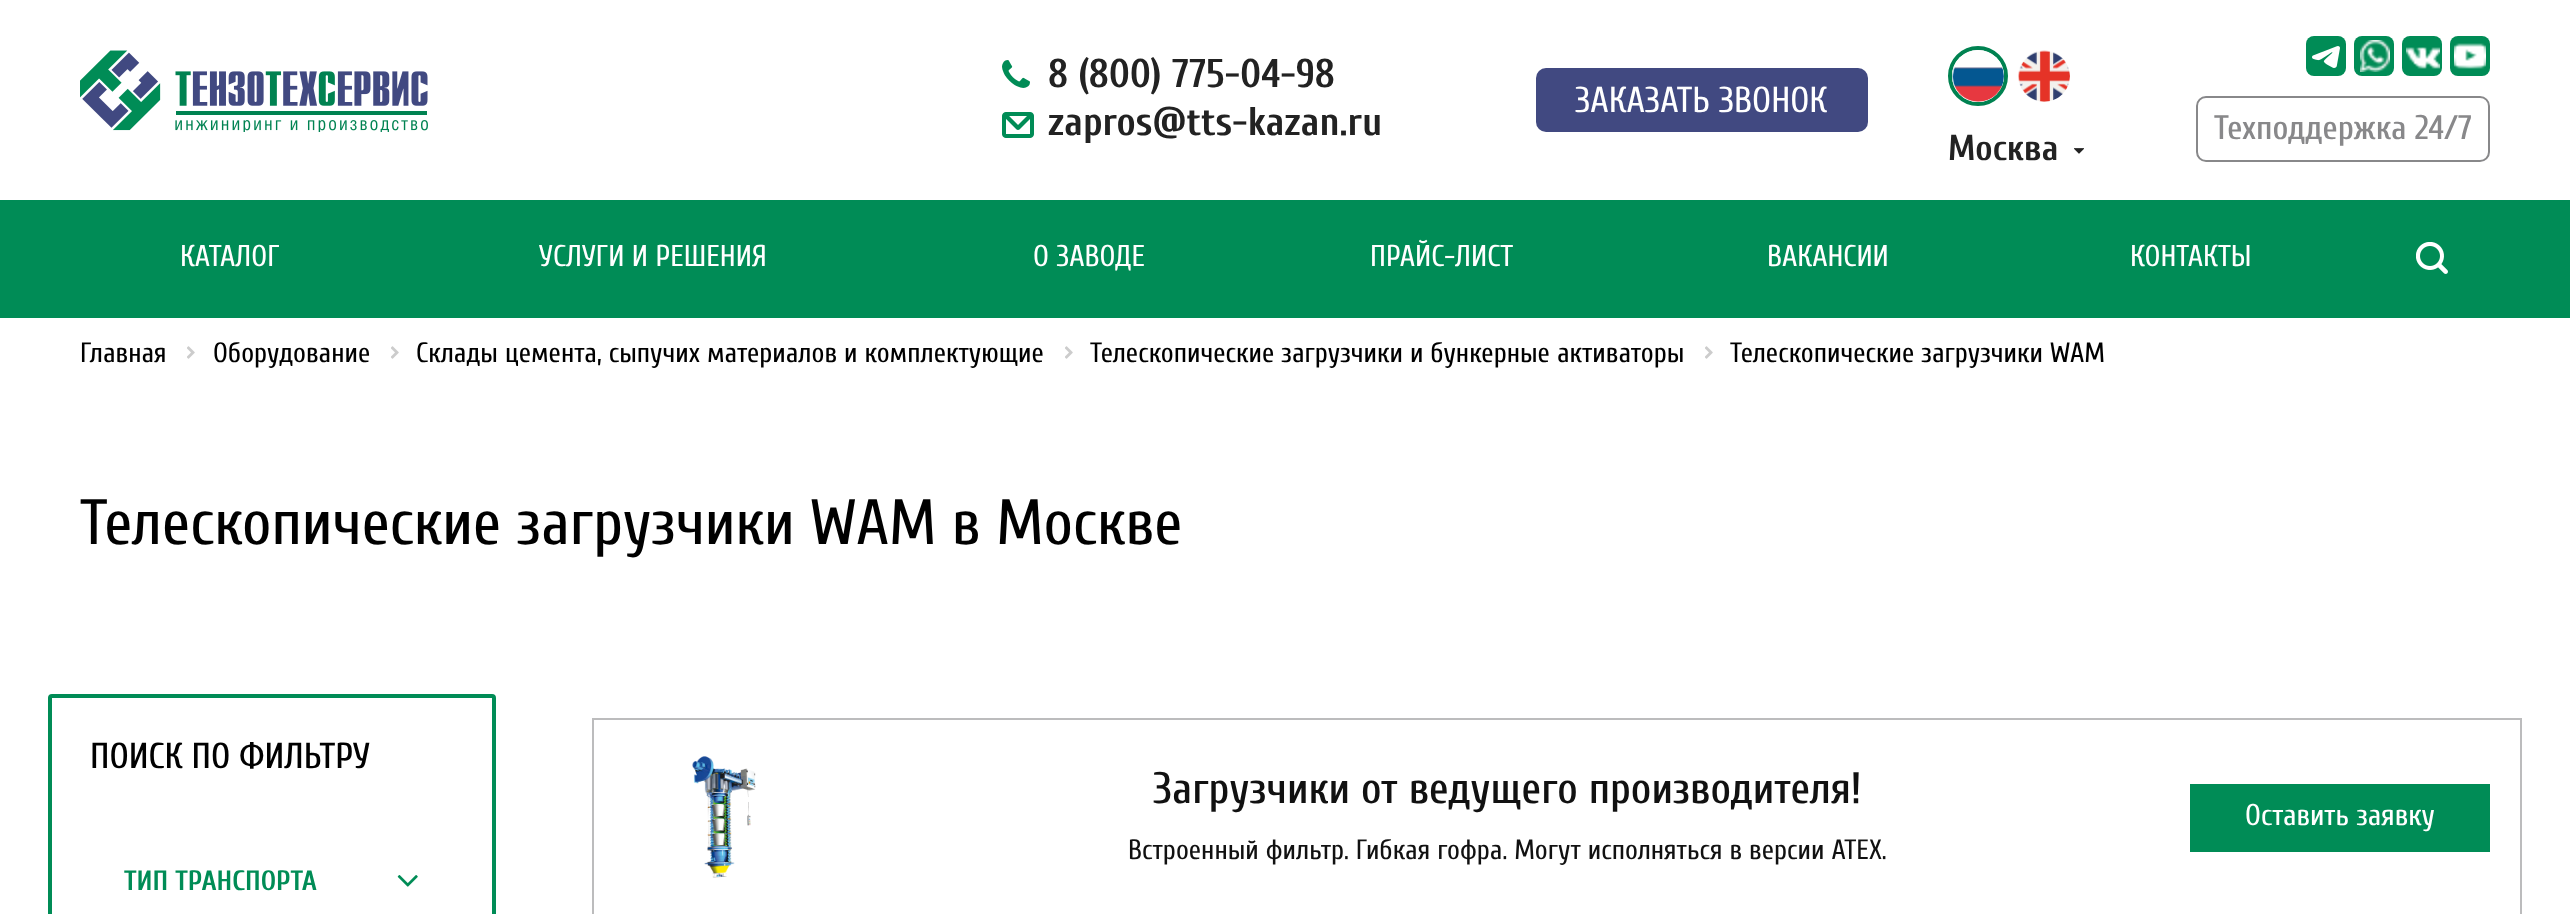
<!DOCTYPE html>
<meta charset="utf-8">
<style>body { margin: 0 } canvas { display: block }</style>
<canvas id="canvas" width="2570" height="914"></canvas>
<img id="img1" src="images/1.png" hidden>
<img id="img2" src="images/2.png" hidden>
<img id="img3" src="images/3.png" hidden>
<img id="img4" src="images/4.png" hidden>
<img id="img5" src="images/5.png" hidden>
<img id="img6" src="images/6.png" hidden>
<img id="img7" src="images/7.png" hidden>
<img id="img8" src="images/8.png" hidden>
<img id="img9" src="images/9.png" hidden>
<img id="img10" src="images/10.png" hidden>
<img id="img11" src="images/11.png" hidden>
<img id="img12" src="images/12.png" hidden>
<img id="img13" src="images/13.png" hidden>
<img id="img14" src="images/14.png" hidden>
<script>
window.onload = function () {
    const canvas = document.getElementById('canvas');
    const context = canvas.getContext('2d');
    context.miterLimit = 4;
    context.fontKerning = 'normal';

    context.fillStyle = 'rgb(255, 255, 255)';
    context.fillRect(0, 0, 2570, 914);
    context.drawImage(document.getElementById('img1'), 80, 50, 348, 82);
    context.drawImage(document.getElementById('img2'), 1002, 60, 28, 28);
    context.drawImage(document.getElementById('img3'), 1002, 112, 32, 26);
    context.fillStyle = 'rgb(65, 73, 129)';
    context.beginPath();
    context.roundRect(1536, 68, 332, 64, 10);
    context.fill();
    context.beginPath();
    context.arc(1978, 76, 28, 0, 2 * Math.PI);
    context.strokeStyle = 'rgb(0, 130, 81)';
    context.lineWidth = 4;
    context.stroke();
    context.drawImage(document.getElementById('img4'), 1952, 50, 52, 52);
    context.drawImage(document.getElementById('img5'), 2018, 50, 52, 52);
    context.drawImage(document.getElementById('img6'), 2074, 148, 10, 6);
    context.fillStyle = 'rgb(0, 140, 86)';
    context.beginPath();
    context.roundRect(2306, 36, 40, 40, 8);
    context.fill();
    context.drawImage(document.getElementById('img7'), 2312, 46, 28, 22);
    context.beginPath();
    context.roundRect(2354, 36, 40, 40, 8);
    context.fill();
    context.drawImage(document.getElementById('img8'), 2360, 40, 30, 32);
    context.beginPath();
    context.roundRect(2402, 36, 40, 40, 8);
    context.fill();
    context.drawImage(document.getElementById('img9'), 2406, 47, 34, 22);
    context.beginPath();
    context.roundRect(2450, 36, 40, 40, 8);
    context.fill();
    context.drawImage(document.getElementById('img10'), 2454, 43, 32, 26);
    context.beginPath();
    context.roundRect(2197, 97, 292, 64, 9);
    context.strokeStyle = 'rgb(136, 136, 138)';
    context.lineWidth = 2;
    context.stroke();
    context.fillRect(0, 200, 2570, 118);
    context.drawImage(document.getElementById('img11'), 2416, 242, 32, 32);
    context.drawImage(document.getElementById('img12'), 187, 346, 8, 13);
    context.drawImage(document.getElementById('img12'), 391, 346, 8, 13);
    context.drawImage(document.getElementById('img12'), 1065, 346, 8, 13);
    context.drawImage(document.getElementById('img12'), 1705, 346, 8, 13);
    context.beginPath();
    context.roundRect(50, 696, 444, 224, 2);
    context.strokeStyle = 'rgb(0, 140, 86)';
    context.lineWidth = 4;
    context.stroke();
    context.drawImage(document.getElementById('img13'), 397, 875, 21, 12);
    context.strokeStyle = 'rgb(188, 188, 189)';
    context.lineWidth = 2;
    context.strokeRect(593, 719, 1928, 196);
    context.drawImage(document.getElementById('img14'), 692, 756, 64, 122);
    context.fillRect(2190, 784, 300, 68);
    context.font = 'bold 40px Cuprum';
    context.fillStyle = 'rgb(34, 34, 34)';
    context.fillText('8 (800) 775-04-98', 1048, 87);
    context.fillText('zapros@tts-kazan.ru', 1048, 135);
    context.font = '36px Cuprum';
    context.fillStyle = 'rgb(255, 255, 255)';
    context.fillText('ЗАКАЗАТЬ ЗВОНОК', 1575, 112);
    context.font = 'bold 36px Cuprum';
    context.fillStyle = 'rgb(34, 34, 34)';
    context.fillText('Москва', 1948, 160);
    context.font = '500 34px Cuprum';
    context.fillStyle = 'rgb(136, 136, 138)';
    context.fillText('Техподдержка 24/7', 2214, 139);
    context.font = '30px Cuprum';
    context.fillStyle = 'rgb(255, 255, 255)';
    context.fillText('КАТАЛОГ', 180, 266);
    context.fillText('УСЛУГИ И РЕШЕНИЯ', 539, 266);
    context.fillText('О ЗАВОДЕ', 1033, 266);
    context.fillText('ПРАЙС-ЛИСТ', 1370, 266);
    context.fillText('ВАКАНСИИ', 1767, 266);
    context.fillText('КОНТАКТЫ', 2130, 266);
    context.font = '28px Cuprum';
    context.fillStyle = 'rgb(0, 0, 0)';
    context.fillText('Главная', 80, 362);
    context.fillText('Оборудование', 213, 362);
    context.fillText('Склады цемента, сыпучих материалов и комплектующие', 416, 362);
    context.fillText('Телескопические загрузчики и бункерные активаторы', 1090, 362);
    context.fillText('Телескопические загрузчики WAM', 1730, 362);
    context.wordSpacing = '-0.5px';
    context.font = '64px Cuprum';
    context.fillText('Телескопические загрузчики WAM в Москве', 80, 544);
    context.wordSpacing = '0px';
    context.font = '500 36px Cuprum';
    context.fillText('ПОИСК ПО ФИЛЬТРУ', 90, 768);
    context.font = 'bold 28px Cuprum';
    context.fillStyle = 'rgb(0, 140, 86)';
    context.fillText('ТИП ТРАНСПОРТА', 124, 890);
    context.font = '500 44px Cuprum';
    context.fillStyle = 'rgb(17, 17, 17)';
    context.fillText('Загрузчики от ведущего производителя!', 1153, 803);
    context.font = '28px Cuprum';
    context.fillText('Встроенный фильтр. Гибкая гофра. Могут исполняться в версии АТЕХ.', 1128, 859);
    context.font = '30px Cuprum';
    context.fillStyle = 'rgb(255, 255, 255)';
    context.fillText('Оставить заявку', 2245, 825);
};
</script>
